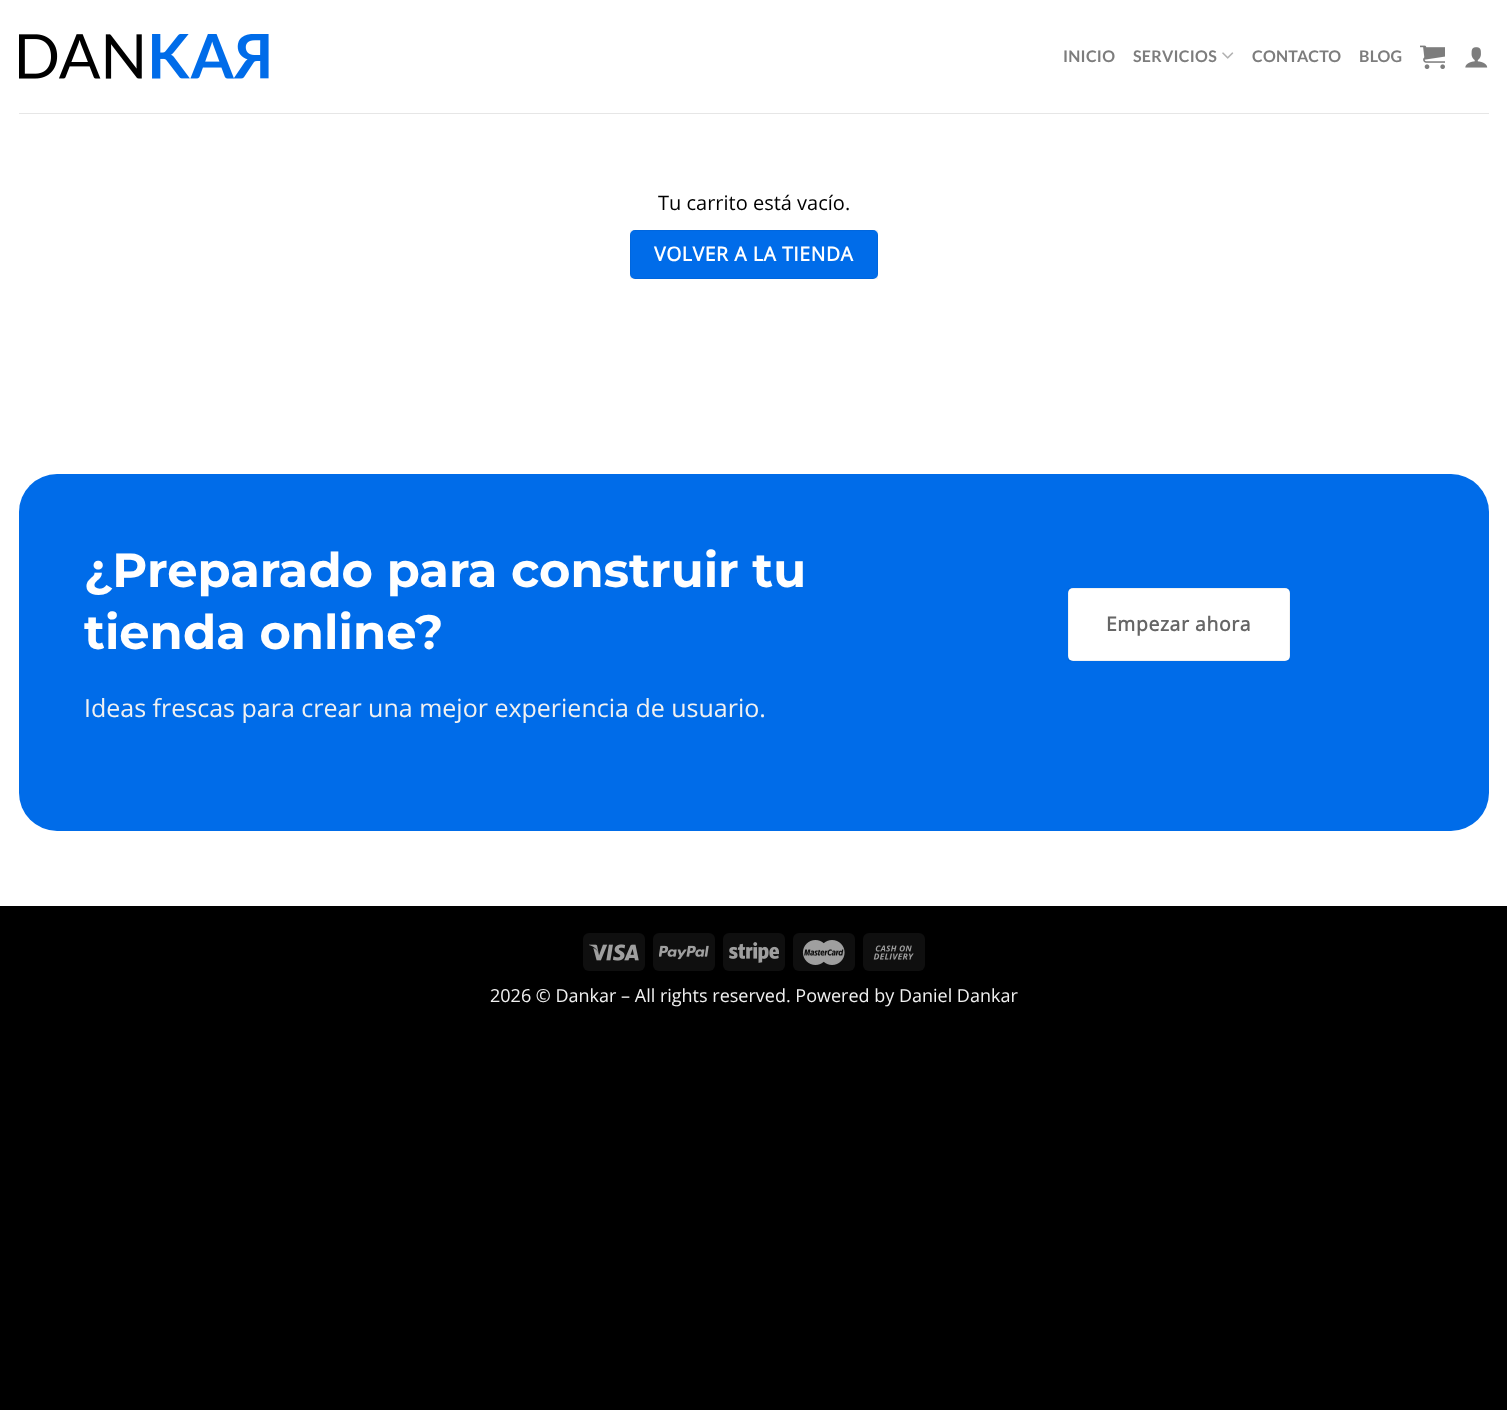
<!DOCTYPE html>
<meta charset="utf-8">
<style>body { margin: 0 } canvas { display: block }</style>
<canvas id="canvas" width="1507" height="1410"></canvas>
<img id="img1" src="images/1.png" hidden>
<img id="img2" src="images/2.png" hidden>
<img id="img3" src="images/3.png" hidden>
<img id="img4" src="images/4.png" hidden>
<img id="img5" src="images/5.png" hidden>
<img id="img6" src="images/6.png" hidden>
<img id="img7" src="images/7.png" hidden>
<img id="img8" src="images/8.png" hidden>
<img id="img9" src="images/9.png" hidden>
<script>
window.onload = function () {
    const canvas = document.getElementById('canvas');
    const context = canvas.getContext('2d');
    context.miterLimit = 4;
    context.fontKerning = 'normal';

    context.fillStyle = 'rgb(0, 0, 0)';
    context.fillRect(0, 0, 1507, 1410);
    context.fillStyle = 'rgb(255, 255, 255)';
    context.fillRect(0, 0, 1507, 906);
    context.drawImage(document.getElementById('img1'), 19, 34, 250, 45);
    context.drawImage(document.getElementById('img2'), 1222, 52, 12, 7);
    context.drawImage(document.getElementById('img3'), 1420, 45, 25, 24);
    context.drawImage(document.getElementById('img4'), 1465, 47, 23, 21);
    context.fillStyle = 'rgb(230, 230, 230)';
    context.fillRect(19, 113, 1470, 1);
    context.fillStyle = 'rgb(0, 108, 233)';
    context.beginPath();
    context.roundRect(630, 230, 248, 49, 5);
    context.fill();
    context.strokeStyle = 'rgba(0, 0, 0, 0.05)';
    context.strokeRect(630.5, 230.5, 247, 48);
    context.beginPath();
    context.roundRect(19, 474, 1470, 357, 38);
    context.fill();
    context.fillStyle = 'rgb(255, 255, 255)';
    context.beginPath();
    context.roundRect(1068, 588, 222, 73, 5);
    context.fill();
    context.strokeRect(1068.5, 588.5, 221, 72);
    context.fillStyle = 'rgb(15, 15, 15)';
    context.beginPath();
    context.roundRect(583, 933, 62, 38, 6);
    context.fill();
    context.drawImage(document.getElementById('img5'), 589, 944, 50, 17);
    context.beginPath();
    context.roundRect(653, 933, 62, 38, 6);
    context.fill();
    context.drawImage(document.getElementById('img6'), 659, 945, 50, 15);
    context.beginPath();
    context.roundRect(723, 933, 62, 38, 6);
    context.fill();
    context.drawImage(document.getElementById('img7'), 729, 942, 50, 21);
    context.beginPath();
    context.roundRect(793, 933, 62, 38, 6);
    context.fill();
    context.drawImage(document.getElementById('img8'), 802, 940, 43, 25);
    context.beginPath();
    context.roundRect(863, 933, 62, 38, 6);
    context.fill();
    context.drawImage(document.getElementById('img9'), 873, 945, 41, 15);
    context.letterSpacing = '0.25px';
    context.font = 'bold 16px Lato';
    context.fillStyle = 'rgb(125, 125, 125)';
    context.fillText('INICIO', 1063, 62);
    context.fillText('SERVICIOS', 1133, 62);
    context.fillText('CONTACTO', 1252, 62);
    context.fillText('BLOG', 1359, 62);
    context.letterSpacing = '0px';
    context.font = '20px Open Sans';
    context.fillStyle = 'rgb(0, 0, 0)';
    context.fillText('Tu carrito está vacío.', 658, 210);
    context.letterSpacing = '0.6px';
    context.font = 'bold 19.4px Open Sans';
    context.fillStyle = 'rgb(255, 255, 255)';
    context.fillText('VOLVER A LA TIENDA', 654, 261);
    context.letterSpacing = '0px';
    context.font = 'bold 48px Montserrat';
    context.fillText('¿Preparado para construir tu', 84, 587);
    context.fillText('tienda online?', 84, 649);
    context.font = '25px Open Sans';
    context.fillStyle = 'rgb(241, 241, 241)';
    context.fillText('Ideas frescas para crear una mejor experiencia de usuario.', 84, 717);
    context.letterSpacing = '0.6px';
    context.font = 'bold 19.4px Open Sans';
    context.fillStyle = 'rgb(102, 102, 102)';
    context.fillText('Empezar ahora', 1106, 631);
    context.letterSpacing = '0px';
    context.font = '18px Open Sans';
    context.fillStyle = 'rgb(241, 241, 241)';
    context.fillText('2026 © Dankar – All rights reserved. Powered by Daniel Dankar', 490, 1002);
};
</script>
